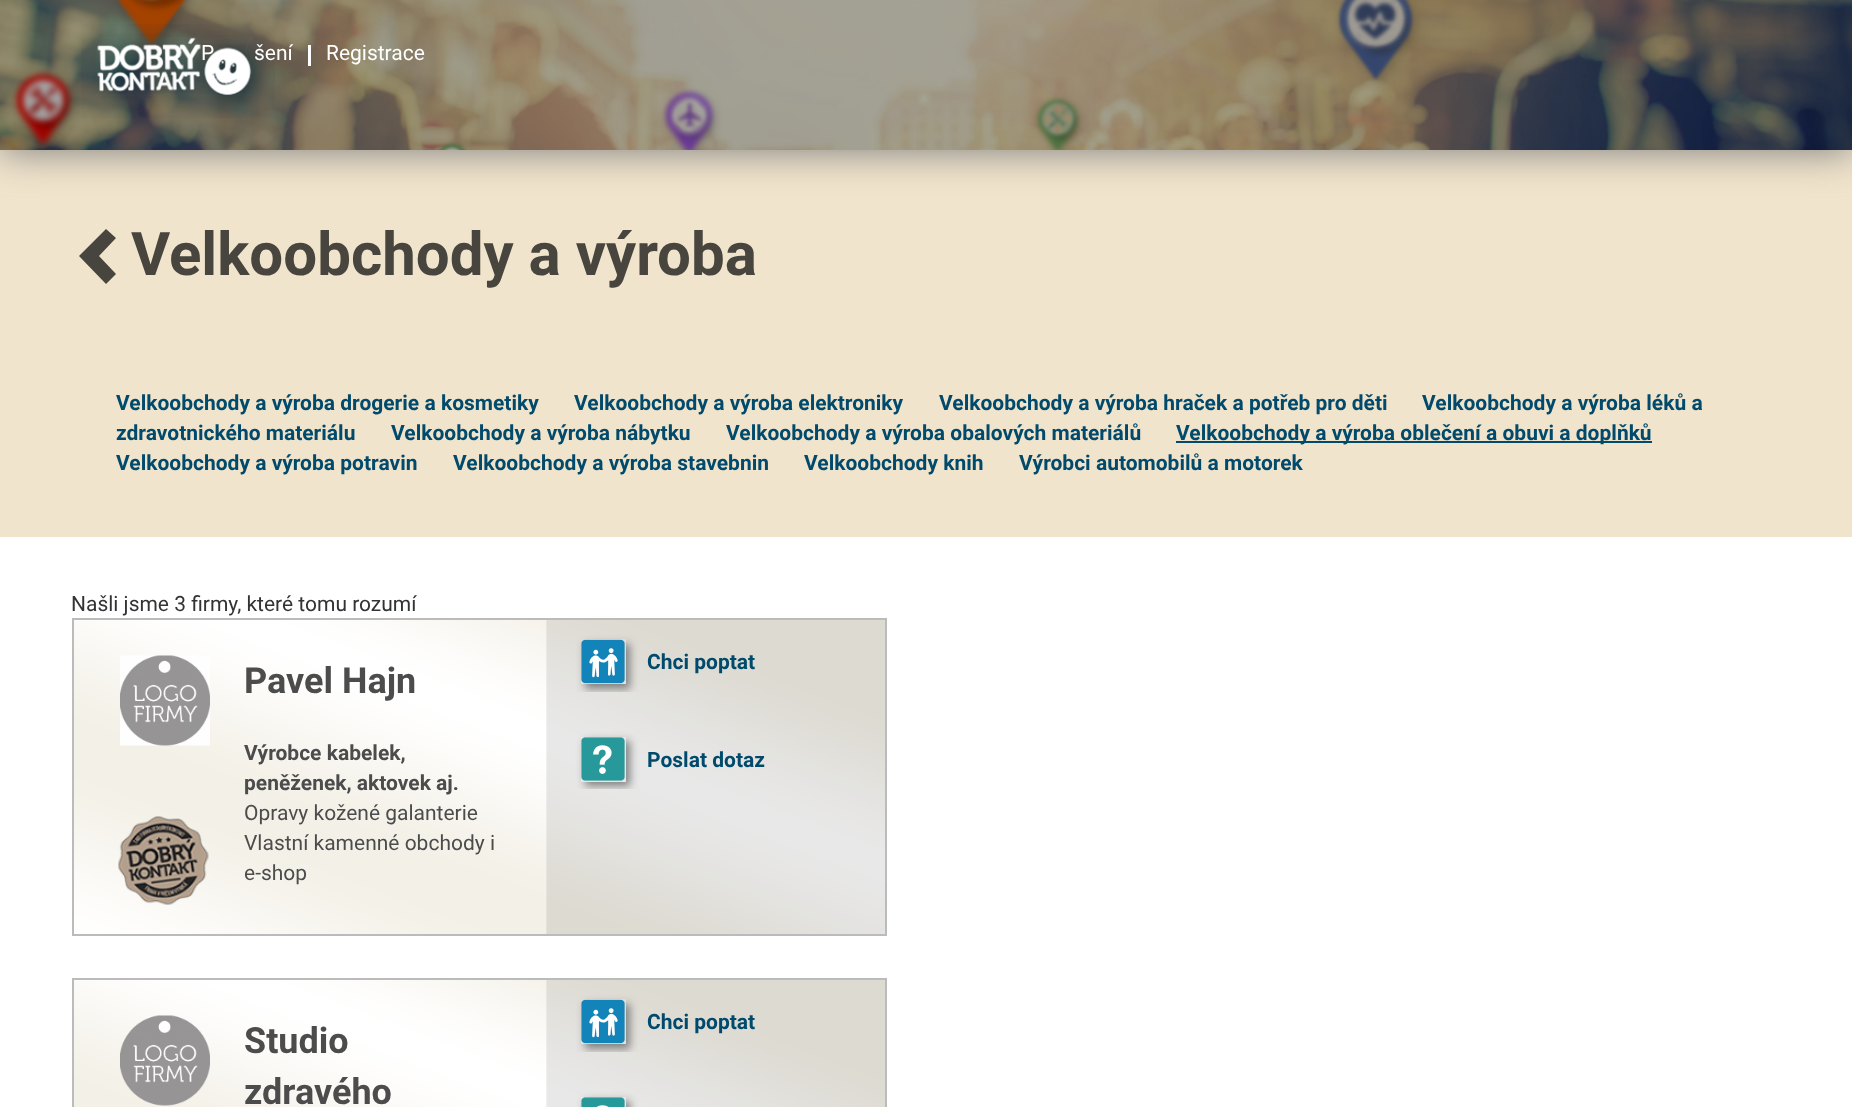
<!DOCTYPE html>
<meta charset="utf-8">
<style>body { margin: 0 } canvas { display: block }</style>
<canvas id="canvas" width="1852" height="1107"></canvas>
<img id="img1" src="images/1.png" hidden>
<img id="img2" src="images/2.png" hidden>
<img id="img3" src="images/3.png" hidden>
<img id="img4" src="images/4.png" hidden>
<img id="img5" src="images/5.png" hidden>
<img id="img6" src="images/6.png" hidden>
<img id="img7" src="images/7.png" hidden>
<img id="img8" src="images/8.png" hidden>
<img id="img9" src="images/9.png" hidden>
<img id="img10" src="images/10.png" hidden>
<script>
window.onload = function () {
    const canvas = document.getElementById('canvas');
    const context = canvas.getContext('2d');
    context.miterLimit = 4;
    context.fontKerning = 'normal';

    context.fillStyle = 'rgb(255, 255, 255)';
    context.fillRect(0, 0, 1852, 1107);
    context.fillStyle = 'rgb(241, 228, 204)';
    context.fillRect(0, 150, 1852, 387);
    context.fillStyle = 'rgb(128, 128, 128)';
    context.filter = 'blur(19px)';
    context.beginPath();
    context.rect(0, 2, 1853, 150);
    context.fill();
    context.filter = 'none';
    context.drawImage(document.getElementById('img1'), 0, 0, 1852, 150);
    context.drawImage(document.getElementById('img2'), 81, 24, 194, 94);
    context.fillStyle = 'rgb(255, 255, 255)';
    context.fillRect(308, 45, 3, 21);
    context.fillStyle = 'rgb(72, 69, 63)';
    context.beginPath();
    context.moveTo(116, 238);
    context.lineTo(99, 256);
    context.lineTo(116, 274);
    context.lineTo(106, 284);
    context.lineTo(79, 256);
    context.lineTo(106, 229);
    context.closePath();
    context.fill();
    context.fillStyle = 'rgb(1, 74, 108)';
    context.fillRect(1176, 441, 476, 2);
    context.drawImage(document.getElementById('img3'), 74, 620, 811, 314);
    context.strokeStyle = 'rgb(187, 187, 187)';
    context.lineWidth = 2;
    context.strokeRect(73, 619, 813, 316);
    context.drawImage(document.getElementById('img4'), 120, 655, 90, 91);
    context.drawImage(document.getElementById('img5'), 118, 816, 91, 89);
    context.save();
    context.beginPath();
    context.rect(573, 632, 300, 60);
    context.clip();
    context.beginPath();
    context.moveTo(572, 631);
    context.lineTo(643, 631);
    context.lineTo(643, 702);
    context.lineTo(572, 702);
    context.closePath();
    context.moveTo(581, 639);
    context.lineTo(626, 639);
    context.lineTo(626, 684);
    context.lineTo(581, 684);
    context.closePath();
    context.clip('evenodd');
    context.fillStyle = 'rgb(128, 128, 128)';
    context.filter = 'blur(4px)';
    context.beginPath();
    context.rect(585, 644, 45, 45);
    context.fill();
    context.filter = 'none';
    context.restore();
    context.drawImage(document.getElementById('img6'), 581, 639, 44, 45);
    context.save();
    context.beginPath();
    context.rect(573, 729, 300, 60);
    context.clip();
    context.beginPath();
    context.moveTo(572, 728);
    context.lineTo(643, 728);
    context.lineTo(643, 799);
    context.lineTo(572, 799);
    context.closePath();
    context.moveTo(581, 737);
    context.lineTo(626, 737);
    context.lineTo(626, 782);
    context.lineTo(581, 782);
    context.closePath();
    context.clip('evenodd');
    context.fillStyle = 'rgb(128, 128, 128)';
    context.filter = 'blur(4px)';
    context.beginPath();
    context.rect(585, 741, 45, 45);
    context.fill();
    context.filter = 'none';
    context.restore();
    context.drawImage(document.getElementById('img7'), 581, 737, 44, 44);
    context.drawImage(document.getElementById('img8'), 74, 980, 811, 127);
    context.strokeRect(73, 979, 813, 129);
    context.save();
    context.beginPath();
    context.rect(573, 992, 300, 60);
    context.clip();
    context.beginPath();
    context.moveTo(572, 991);
    context.lineTo(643, 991);
    context.lineTo(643, 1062);
    context.lineTo(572, 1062);
    context.closePath();
    context.moveTo(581, 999);
    context.lineTo(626, 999);
    context.lineTo(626, 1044);
    context.lineTo(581, 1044);
    context.closePath();
    context.clip('evenodd');
    context.fillStyle = 'rgb(128, 128, 128)';
    context.filter = 'blur(4px)';
    context.beginPath();
    context.rect(585, 1004, 45, 45);
    context.fill();
    context.filter = 'none';
    context.restore();
    context.drawImage(document.getElementById('img6'), 581, 999, 44, 45);
    context.save();
    context.beginPath();
    context.moveTo(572, 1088);
    context.lineTo(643, 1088);
    context.lineTo(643, 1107);
    context.lineTo(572, 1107);
    context.closePath();
    context.moveTo(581, 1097);
    context.lineTo(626, 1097);
    context.lineTo(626, 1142);
    context.lineTo(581, 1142);
    context.closePath();
    context.clip('evenodd');
    context.fillStyle = 'rgb(128, 128, 128)';
    context.filter = 'blur(4px)';
    context.beginPath();
    context.rect(585, 1101, 45, 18);
    context.fill();
    context.filter = 'none';
    context.restore();
    context.drawImage(document.getElementById('img9'), 581, 1097, 44, 10);
    context.drawImage(document.getElementById('img10'), 120, 1015, 90, 91);
    context.font = '21px Roboto';
    context.fillStyle = 'rgb(255, 255, 255)';
    context.fillText('P', 201, 60);
    context.fillText('šení', 254, 60);
    context.fillText('Registrace', 326, 60);
    context.font = 'bold 60px Roboto';
    context.fillStyle = 'rgb(72, 69, 63)';
    context.fillText('Velkoobchody a výroba', 131, 275);
    context.font = 'bold 21px Roboto';
    context.fillStyle = 'rgb(1, 74, 108)';
    context.fillText('Velkoobchody a výroba drogerie a kosmetiky', 116, 410);
    context.fillText('Velkoobchody a výroba elektroniky', 574, 410);
    context.fillText('Velkoobchody a výroba hraček a potřeb pro děti', 939, 410);
    context.fillText('Velkoobchody a výroba léků a', 1422, 410);
    context.fillText('zdravotnického materiálu', 116, 440);
    context.fillText('Velkoobchody a výroba nábytku', 391, 440);
    context.fillText('Velkoobchody a výroba obalových materiálů', 726, 440);
    context.fillText('Velkoobchody a výroba oblečení a obuvi a doplňků', 1176, 440);
    context.fillText('Velkoobchody a výroba potravin', 116, 470);
    context.fillText('Velkoobchody a výroba stavebnin', 453, 470);
    context.fillText('Velkoobchody knih', 804, 470);
    context.fillText('Výrobci automobilů a motorek', 1019, 470);
    context.font = '21px Roboto';
    context.fillStyle = 'rgb(51, 51, 51)';
    context.fillText('Našli jsme 3 firmy, které tomu rozumí', 71, 611);
    context.font = 'bold 36px Roboto';
    context.fillStyle = 'rgb(76, 76, 76)';
    context.fillText('Pavel Hajn', 244, 693);
    context.font = 'bold 21px Roboto';
    context.fillText('Výrobce kabelek,', 244, 760);
    context.fillText('peněženek, aktovek aj.', 244, 790);
    context.font = '21px Roboto';
    context.fillText('Opravy kožené galanterie', 244, 820);
    context.fillText('Vlastní kamenné obchody i', 244, 850);
    context.fillText('e-shop', 244, 880);
    context.font = 'bold 21px Roboto';
    context.fillStyle = 'rgb(1, 74, 108)';
    context.fillText('Chci poptat', 647, 669);
    context.fillText('Poslat dotaz', 647, 767);
    context.fillText('Chci poptat', 647, 1029);
    context.font = 'bold 36px Roboto';
    context.fillStyle = 'rgb(76, 76, 76)';
    context.fillText('Studio', 244, 1053);
    context.fillText('zdravého', 244, 1104);
};
</script>
